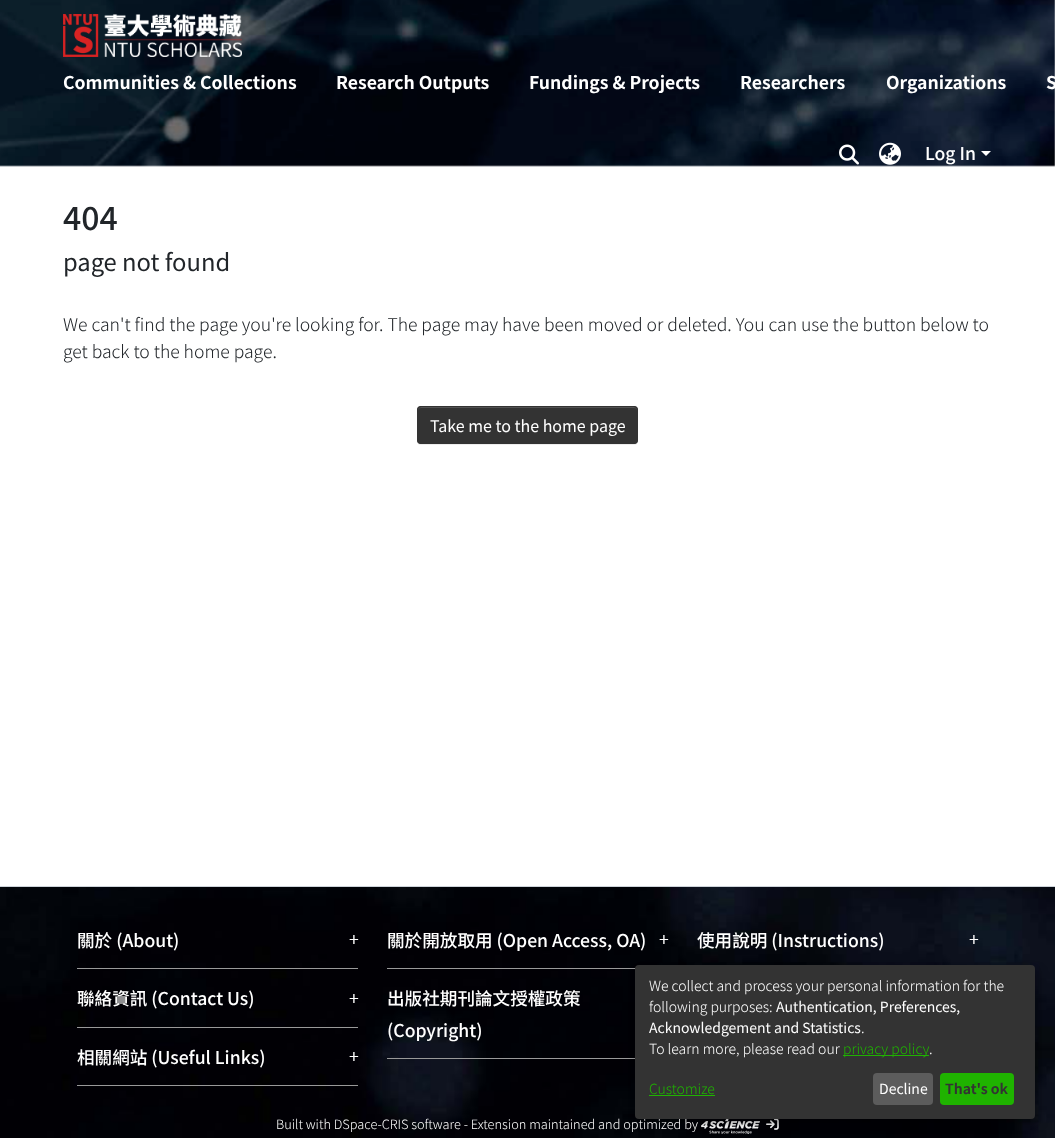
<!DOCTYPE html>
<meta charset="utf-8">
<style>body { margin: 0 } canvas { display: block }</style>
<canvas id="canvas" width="1055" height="1139"></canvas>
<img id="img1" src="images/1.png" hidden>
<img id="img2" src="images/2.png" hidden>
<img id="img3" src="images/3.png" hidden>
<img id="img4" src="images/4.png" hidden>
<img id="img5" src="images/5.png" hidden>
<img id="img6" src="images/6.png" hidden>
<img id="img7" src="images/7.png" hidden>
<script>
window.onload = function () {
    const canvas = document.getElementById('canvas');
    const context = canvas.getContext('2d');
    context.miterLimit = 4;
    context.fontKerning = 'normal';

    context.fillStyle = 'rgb(255, 255, 255)';
    context.fillRect(0, 0, 1055, 1139);
    context.drawImage(document.getElementById('img1'), 0, 0, 1055, 167);
    context.drawImage(document.getElementById('img2'), 63, 14, 179, 43);
    context.drawImage(document.getElementById('img3'), 839, 144, 20, 21);
    context.drawImage(document.getElementById('img4'), 879, 142, 22, 23);
    context.beginPath();
    context.moveTo(981, 151);
    context.lineTo(991, 151);
    context.lineTo(986, 156);
    context.closePath();
    context.fill();
    context.fillStyle = 'rgba(0, 0, 0, 0.07)';
    context.filter = 'blur(0.5px)';
    context.beginPath();
    context.roundRect(417, 407, 221, 38, 4);
    context.fill();
    context.filter = 'none';
    context.fillStyle = 'rgb(51, 51, 51)';
    context.beginPath();
    context.roundRect(417, 406, 221, 38, 4);
    context.fill();
    context.fillStyle = 'rgb(82, 82, 82)';
    context.beginPath();
    context.moveTo(421, 408);
    context.lineTo(634, 408);
    context.bezierCurveTo(636, 408, 637, 409, 637, 411);
    context.lineTo(637, 410);
    context.bezierCurveTo(637, 408, 636, 407, 634, 407);
    context.lineTo(421, 407);
    context.bezierCurveTo(419, 407, 418, 408, 418, 410);
    context.lineTo(418, 411);
    context.bezierCurveTo(418, 409, 419, 408, 421, 408);
    context.closePath();
    context.fill();
    context.beginPath();
    context.roundRect(417.5, 406.5, 220, 37, 3.5);
    context.strokeStyle = 'rgb(51, 51, 51)';
    context.stroke();
    context.fillStyle = 'rgb(206, 212, 218)';
    context.fillRect(0, 886, 1055, 1);
    context.drawImage(document.getElementById('img5'), 0, 887, 1055, 251);
    context.fillStyle = 'rgb(153, 153, 153)';
    context.fillRect(77, 968, 281, 1);
    context.fillRect(77, 1027, 281, 1);
    context.fillRect(77, 1085, 281, 1);
    context.fillRect(387, 968, 249, 1);
    context.fillRect(387, 1058, 248, 1);
    context.drawImage(document.getElementById('img6'), 701, 1119, 59, 15);
    context.drawImage(document.getElementById('img7'), 766, 1119, 13, 11);
    context.fillStyle = 'rgba(0, 0, 0, 0.19)';
    context.filter = 'blur(5px)';
    context.beginPath();
    context.roundRect(640, 970, 400, 154, 4);
    context.fill();
    context.filter = 'none';
    context.fillStyle = 'rgba(0, 0, 0, 0.2)';
    context.filter = 'blur(3px)';
    context.beginPath();
    context.roundRect(635, 969, 400, 154, 4);
    context.fill();
    context.filter = 'none';
    context.font = 'bold 17.6px Noto Sans TC';
    context.fillStyle = 'rgb(255, 255, 255)';
    context.fillText('Communities & Collections', 63, 89);
    context.fillText('Research Outputs', 336, 89);
    context.fillText('Fundings & Projects', 529, 89);
    context.fillText('Researchers', 740, 89);
    context.fillText('Organizations', 886, 89);
    context.fillText('S', 1046, 89);
    context.font = '500 17.6px Noto Sans TC';
    context.fillText('Log In', 925, 160);
    context.font = '500 32px Noto Sans TC';
    context.fillStyle = 'rgb(33, 37, 41)';
    context.fillText('404', 63, 230);
    context.font = '23.75px Noto Sans TC';
    context.fillText('page not found', 63, 271);
    context.font = '300 17.6px Noto Sans TC';
    context.fillText('We can\'t find the page you\'re looking for. The page may have been moved or deleted. You can use the button below to', 63, 331);
    context.fillText('get back to the home page.', 63, 358);
    context.font = '16px Noto Sans TC';
    context.fillStyle = 'rgb(255, 255, 255)';
    context.fillText('Take me to the home page', 430, 432);
    context.font = '500 17.6px Noto Sans TC';
    context.fillText('關於 (About)', 77, 947);
    context.font = '17.6px Noto Sans TC';
    context.fillText('+', 349, 946);
    context.font = '500 17.6px Noto Sans TC';
    context.fillText('聯絡資訊 (Contact Us)', 77, 1005);
    context.font = '17.6px Noto Sans TC';
    context.fillText('+', 349, 1005);
    context.font = '500 17.6px Noto Sans TC';
    context.fillText('相關網站 (Useful Links)', 77, 1064);
    context.font = '17.6px Noto Sans TC';
    context.fillText('+', 349, 1063);
    context.font = '500 17.6px Noto Sans TC';
    context.fillText('關於開放取用 (Open Access, OA)', 387, 947);
    context.font = '17.6px Noto Sans TC';
    context.fillText('+', 659, 946);
    context.font = '500 17.6px Noto Sans TC';
    context.fillText('出版社期刊論文授權政策', 387, 1005);
    context.fillText('(Copyright)', 387, 1037);
    context.fillText('使用說明 (Instructions)', 697, 947);
    context.font = '17.6px Noto Sans TC';
    context.fillText('+', 969, 946);
    context.font = '300 12.8px Noto Sans TC';
    context.fillText('Built with DSpace-CRIS software - Extension maintained and optimized by', 276, 1129);
    context.fillStyle = 'rgb(51, 51, 51)';
    context.beginPath();
    context.roundRect(635, 965, 400, 154, 4);
    context.fill();
    context.font = '300 14px Noto Sans TC';
    context.fillStyle = 'rgb(255, 255, 255)';
    context.fillText('We collect and process your personal information for the', 649, 991);
    context.fillText('following purposes:', 649, 1012);
    context.font = '14px Noto Sans TC';
    context.fillText('Authentication, Preferences,', 776, 1012);
    context.fillText('Acknowledgement and Statistics', 649, 1033);
    context.font = '300 14px Noto Sans TC';
    context.fillText('.', 861, 1033);
    context.fillText('To learn more, please read our', 649, 1054);
    context.fillText('.', 929, 1054);
    context.fillStyle = 'rgb(31, 179, 0)';
    context.fillRect(843, 1055, 86, 1);
    context.fillText('privacy policy', 843, 1054);
    context.fillText('Customize', 649, 1094);
    context.fillRect(649, 1095, 66, 1);
    context.fillStyle = 'rgb(92, 92, 92)';
    context.beginPath();
    context.roundRect(873, 1073, 60, 32, 4);
    context.fill();
    context.font = '14px Noto Sans TC';
    context.fillStyle = 'rgb(255, 255, 255)';
    context.fillText('Decline', 879, 1094);
    context.fillStyle = 'rgb(31, 179, 0)';
    context.beginPath();
    context.roundRect(940, 1073, 74, 32, 4);
    context.fill();
    context.font = 'bold 14px Noto Sans TC';
    context.fillStyle = 'rgb(51, 51, 51)';
    context.fillText('That\'s ok', 945, 1094);
};
</script>
